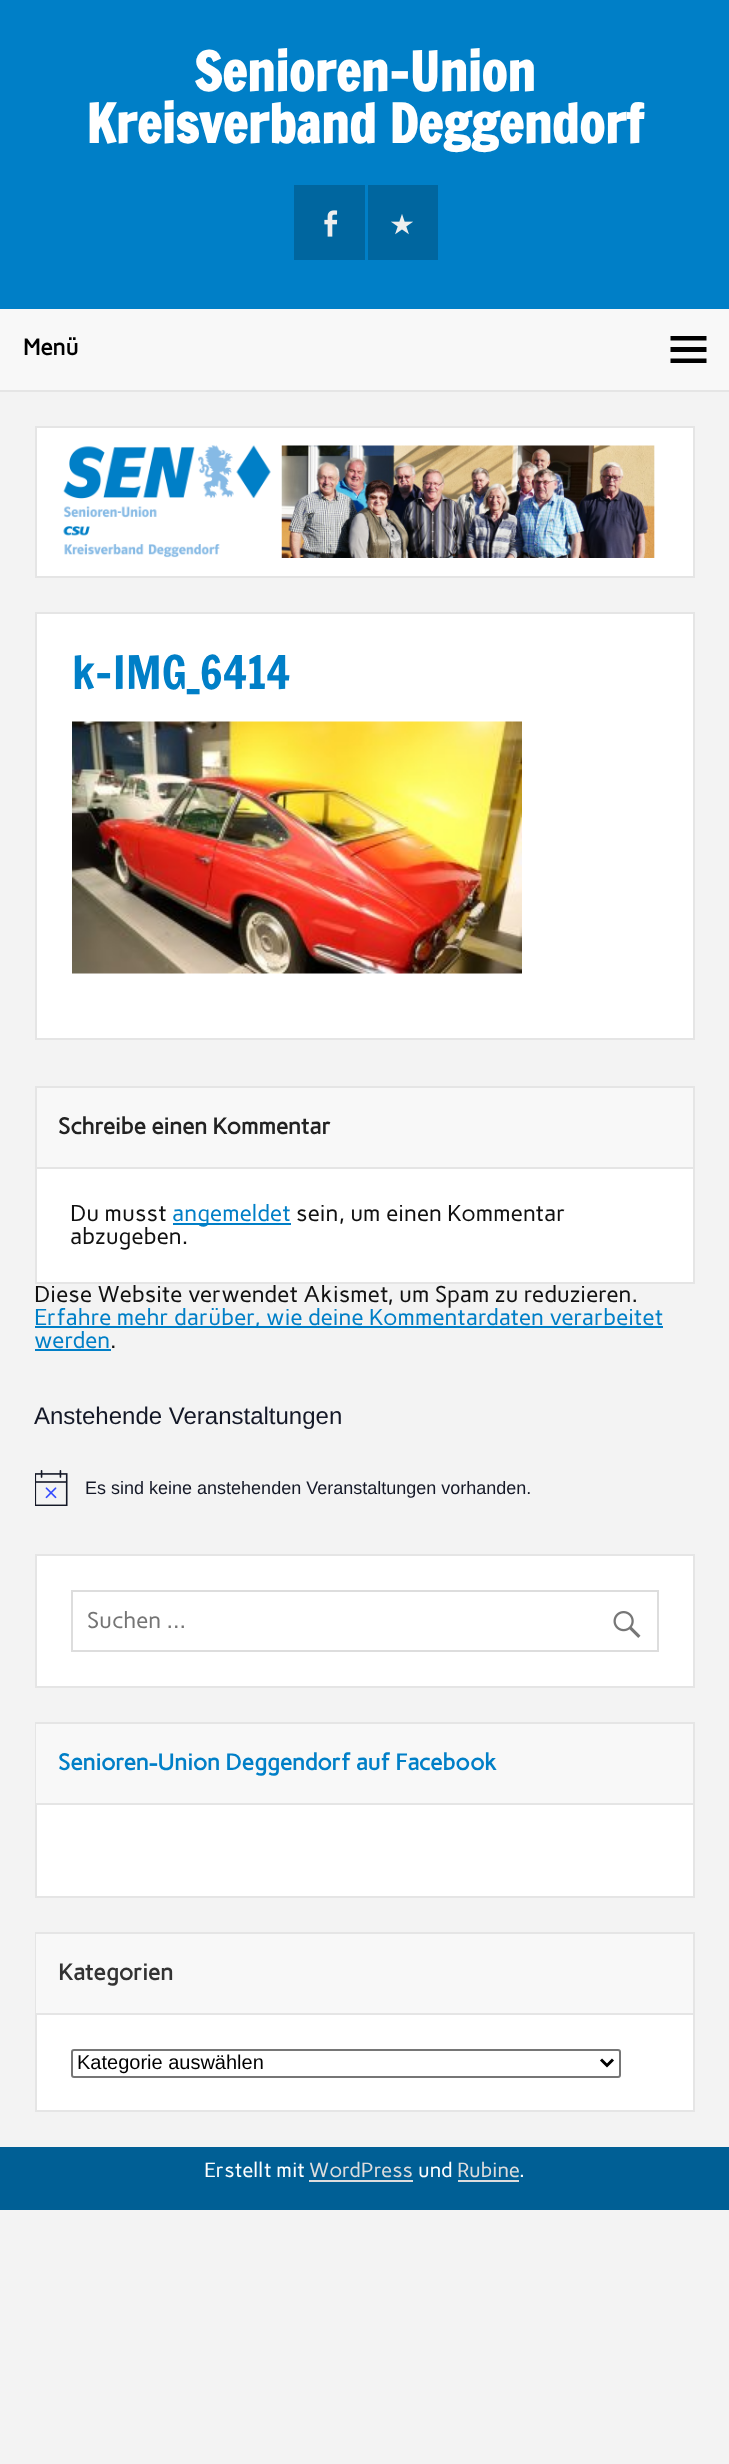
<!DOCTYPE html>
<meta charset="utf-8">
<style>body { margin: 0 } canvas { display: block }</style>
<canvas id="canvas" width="729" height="2464"></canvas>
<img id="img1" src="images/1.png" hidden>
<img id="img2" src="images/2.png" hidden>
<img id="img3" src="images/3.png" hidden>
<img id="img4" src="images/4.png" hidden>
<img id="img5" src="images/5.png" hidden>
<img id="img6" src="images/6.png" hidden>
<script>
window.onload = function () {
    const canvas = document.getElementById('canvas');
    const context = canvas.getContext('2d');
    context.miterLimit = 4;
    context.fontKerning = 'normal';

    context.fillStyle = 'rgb(243, 243, 243)';
    context.fillRect(0, 0, 729, 2464);
    context.fillStyle = 'rgb(0, 127, 199)';
    context.fillRect(0, 0, 729, 309);
    context.fillStyle = 'rgb(0, 102, 159)';
    context.fillRect(294, 185, 71, 75);
    context.drawImage(document.getElementById('img1'), 324, 210, 14, 27);
    context.fillRect(368, 185, 70, 75);
    context.drawImage(document.getElementById('img2'), 391, 214, 22, 21);
    context.fillStyle = 'rgb(248, 248, 248)';
    context.fillRect(0, 309, 729, 81);
    context.fillStyle = 'rgb(229, 229, 229)';
    context.fillRect(0, 390, 729, 2);
    context.fillStyle = 'rgb(0, 0, 0)';
    context.beginPath();
    context.moveTo(670.5, 363);
    context.lineTo(670.5, 358.5);
    context.lineTo(706.5, 358.5);
    context.lineTo(706.5, 363);
    context.closePath();
    context.moveTo(670.5, 336);
    context.lineTo(706.5, 336);
    context.lineTo(706.5, 340.5);
    context.lineTo(670.5, 340.5);
    context.closePath();
    context.moveTo(670.5, 352);
    context.lineTo(670.5, 347);
    context.lineTo(706.5, 347);
    context.lineTo(706.5, 352);
    context.closePath();
    context.fill();
    context.fillStyle = 'rgb(255, 255, 255)';
    context.beginPath();
    context.rect(36, 427, 658, 150);
    context.fill();
    context.strokeStyle = 'rgb(229, 229, 229)';
    context.lineWidth = 2;
    context.stroke();
    context.drawImage(document.getElementById('img3'), 63, 445, 592, 113);
    context.beginPath();
    context.rect(36, 613, 658, 426);
    context.fill();
    context.stroke();
    context.drawImage(document.getElementById('img4'), 72, 721, 450, 253);
    context.fillStyle = 'rgb(248, 248, 248)';
    context.fillRect(37, 1088, 656, 79);
    context.fillStyle = 'rgb(229, 229, 229)';
    context.fillRect(35, 1086, 660, 2);
    context.fillRect(693, 1086, 2, 81);
    context.fillRect(35, 1086, 2, 81);
    context.fillStyle = 'rgb(255, 255, 255)';
    context.beginPath();
    context.rect(36, 1168, 658, 115);
    context.fill();
    context.stroke();
    context.fillStyle = 'rgb(0, 127, 199)';
    context.fillRect(173, 1223, 118, 2);
    context.fillRect(35, 1326, 628, 2);
    context.fillRect(35, 1349, 76, 2);
    context.drawImage(document.getElementById('img5'), 35, 1470, 33, 36);
    context.fillStyle = 'rgb(255, 255, 255)';
    context.beginPath();
    context.rect(36, 1555, 658, 132);
    context.fill();
    context.stroke();
    context.strokeStyle = 'rgb(221, 221, 221)';
    context.strokeRect(72, 1591, 586, 60);
    context.drawImage(document.getElementById('img6'), 613, 1611, 28, 27);
    context.fillRect(37, 1805, 656, 91);
    context.strokeStyle = 'rgb(229, 229, 229)';
    context.strokeRect(36, 1723, 658, 174);
    context.fillStyle = 'rgb(248, 248, 248)';
    context.fillRect(36, 1724, 657, 79);
    context.fillStyle = 'rgb(229, 229, 229)';
    context.fillRect(36, 1803, 657, 2);
    context.fillStyle = 'rgb(255, 255, 255)';
    context.fillRect(37, 2015, 656, 95);
    context.strokeRect(36, 1933, 658, 178);
    context.fillStyle = 'rgb(248, 248, 248)';
    context.fillRect(36, 1934, 657, 79);
    context.fillStyle = 'rgb(229, 229, 229)';
    context.fillRect(36, 2013, 657, 2);
    context.beginPath();
    context.roundRect(72, 2050, 548, 27, 2);
    context.strokeStyle = 'rgb(118, 118, 118)';
    context.stroke();
    context.beginPath();
    context.moveTo(601, 2059.5);
    context.lineTo(607, 2065.5);
    context.lineTo(613, 2059.5);
    context.strokeStyle = 'rgb(0, 0, 0)';
    context.lineWidth = 3;
    context.stroke();
    context.fillStyle = 'rgb(0, 95, 149)';
    context.fillRect(0, 2147, 729, 63);
    context.fillStyle = 'rgb(221, 221, 221)';
    context.fillRect(309, 2180, 104, 2);
    context.fillRect(458, 2180, 61, 2);
    context.font = 'bold 52.5px Francois One';
    context.fillStyle = 'rgb(255, 255, 255)';
    context.fillText('Senioren-Union', 194, 91);
    context.fillText('Kreisverband Deggendorf', 86, 143);
    context.font = 'bold 22.8px Carme';
    context.fillStyle = 'rgb(0, 0, 0)';
    context.fillText('Menü', 23, 355);
    context.font = '45.5px Francois One';
    context.fillStyle = 'rgb(0, 127, 199)';
    context.fillText('k-IMG_6414', 72, 689);
    context.font = 'bold 22.8px Carme';
    context.fillStyle = 'rgb(34, 34, 34)';
    context.fillText('Schreibe einen Kommentar', 58, 1134);
    context.font = '22.8px Carme';
    context.fillStyle = 'rgb(17, 17, 17)';
    context.fillText('Du musst', 70, 1221);
    context.fillStyle = 'rgb(0, 127, 199)';
    context.fillText('angemeldet', 172, 1221);
    context.fillStyle = 'rgb(17, 17, 17)';
    context.fillText('sein, um einen Kommentar', 296, 1221);
    context.fillText('abzugeben.', 70, 1244);
    context.fillText('Diese Website verwendet Akismet, um Spam zu reduzieren.', 34, 1302);
    context.fillStyle = 'rgb(0, 127, 199)';
    context.fillText('Erfahre mehr darüber, wie deine Kommentardaten verarbeitet', 34, 1325);
    context.fillText('werden', 34, 1348);
    context.fillStyle = 'rgb(17, 17, 17)';
    context.fillText('.', 110, 1348);
    context.font = '24px Liberation Sans';
    context.fillStyle = 'rgb(20, 24, 39)';
    context.fillText('Anstehende Veranstaltungen', 34, 1424);
    context.font = '18px Liberation Sans';
    context.fillText('Es sind keine anstehenden Veranstaltungen vorhanden.', 85, 1494);
    context.font = '22.8px Carme';
    context.fillStyle = 'rgb(117, 117, 117)';
    context.fillText('Suchen …', 87, 1628);
    context.font = 'bold 22.8px Carme';
    context.fillStyle = 'rgb(0, 127, 199)';
    context.fillText('Senioren-Union Deggendorf auf Facebook', 58, 1770);
    context.fillStyle = 'rgb(51, 51, 51)';
    context.fillText('Kategorien', 58, 1980);
    context.font = '20px Liberation Sans';
    context.fillStyle = 'rgb(0, 0, 0)';
    context.fillText('Kategorie auswählen', 77, 2069);
    context.font = '20.5px Carme';
    context.fillStyle = 'rgb(255, 255, 255)';
    context.fillText('Erstellt mit', 204, 2177);
    context.fillStyle = 'rgb(221, 221, 221)';
    context.fillText('WordPress', 309, 2177);
    context.fillStyle = 'rgb(255, 255, 255)';
    context.fillText('und', 418, 2177);
    context.fillStyle = 'rgb(221, 221, 221)';
    context.fillText('Rubine', 457, 2177);
    context.fillStyle = 'rgb(255, 255, 255)';
    context.fillText('.', 519, 2177);
};
</script>
